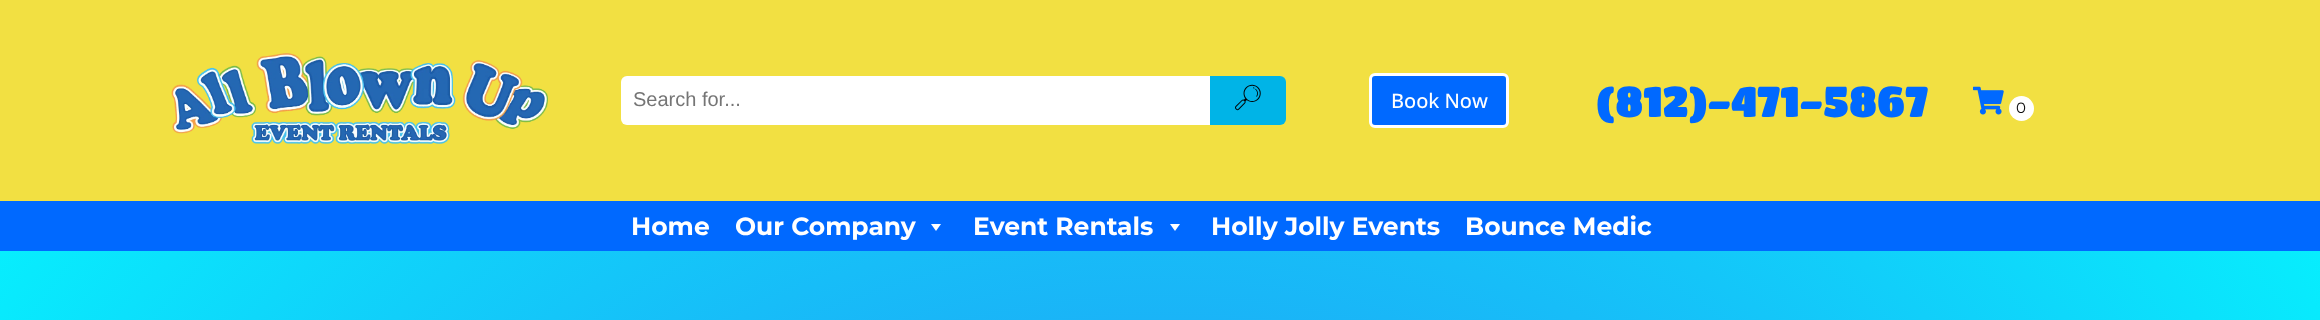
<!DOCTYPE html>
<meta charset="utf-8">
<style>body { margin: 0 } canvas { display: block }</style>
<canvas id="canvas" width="2320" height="320"></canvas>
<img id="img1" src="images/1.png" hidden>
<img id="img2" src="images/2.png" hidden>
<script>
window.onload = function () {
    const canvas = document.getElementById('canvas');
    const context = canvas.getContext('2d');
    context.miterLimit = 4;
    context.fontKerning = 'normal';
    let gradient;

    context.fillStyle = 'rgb(255, 255, 255)';
    context.fillRect(0, 0, 2320, 320);
    gradient = context.createRadialGradient(1160, 1159.95, 0, 1160, 1159.95, 1640);
    gradient.addColorStop(0.22, 'rgb(41, 135, 242)');
    gradient.addColorStop(1, 'rgb(2, 252, 255)');
    context.fillStyle = gradient;
    context.beginPath();
    context.rect(0, 251, 2320, 69);
    context.save();
    context.clip();
    context.scale(1, 1715 / 1640);
    context.fillRect(0, 0, 2320, 307);
    context.restore();
    context.fillStyle = 'rgb(242, 224, 66)';
    context.fillRect(0, 0, 2320, 201);
    context.drawImage(document.getElementById('img1'), 171, 53, 377, 91);
    context.fillStyle = 'rgb(255, 255, 255)';
    context.beginPath();
    context.roundRect(621, 76, 590, 49, [6, 0, 0, 6]);
    context.fill();
    context.fillStyle = 'rgb(0, 180, 231)';
    context.beginPath();
    context.roundRect(1210, 76, 76, 49, [0, 6, 6, 0]);
    context.fill();
    context.fillStyle = 'rgb(0, 105, 255)';
    context.beginPath();
    context.roundRect(1370.5, 74.5, 137, 52, 4.5);
    context.fill();
    context.strokeStyle = 'rgb(255, 255, 255)';
    context.lineWidth = 3;
    context.stroke();
    context.drawImage(document.getElementById('img2'), 1973, 86, 31, 29);
    context.fillStyle = 'rgb(255, 255, 255)';
    context.beginPath();
    context.arc(2021.5, 108.5, 12.5, 0, 2 * Math.PI);
    context.fill();
    context.fillStyle = 'rgb(0, 105, 255)';
    context.fillRect(0, 201, 2320, 50);
    context.fillStyle = 'rgb(255, 255, 255)';
    context.beginPath();
    context.moveTo(941, 224);
    context.lineTo(936, 231);
    context.lineTo(931, 224);
    context.closePath();
    context.fill();
    context.beginPath();
    context.moveTo(1180, 224);
    context.lineTo(1175, 231);
    context.lineTo(1170, 224);
    context.closePath();
    context.fill();
    context.font = '20px Liberation Sans';
    context.fillStyle = 'rgb(117, 117, 117)';
    context.fillText('Search for...', 633, 106);
    context.font = '25px Noto Emoji';
    context.fillStyle = 'rgb(0, 0, 0)';
    context.fillText('🔎︎', 1232, 106);
    context.font = '500 20px Open Sans';
    context.fillStyle = 'rgb(255, 255, 255)';
    context.fillText('Book Now', 1391, 108);
    context.font = '42.5px Titan One';
    context.fillStyle = 'rgb(0, 105, 255)';
    context.fillText('(812)-471-5867', 1596, 117);
    context.font = '15px Montserrat';
    context.fillStyle = 'rgb(14, 14, 14)';
    context.fillText('0', 2016, 113);
    context.font = 'bold 25px Montserrat';
    context.fillStyle = 'rgb(255, 255, 255)';
    context.fillText('Home', 631, 235);
    context.fillText('Our Company', 735, 235);
    context.fillText('Event Rentals', 973, 235);
    context.fillText('Holly Jolly Events', 1211, 235);
    context.fillText('Bounce Medic', 1465, 235);
};
</script>
